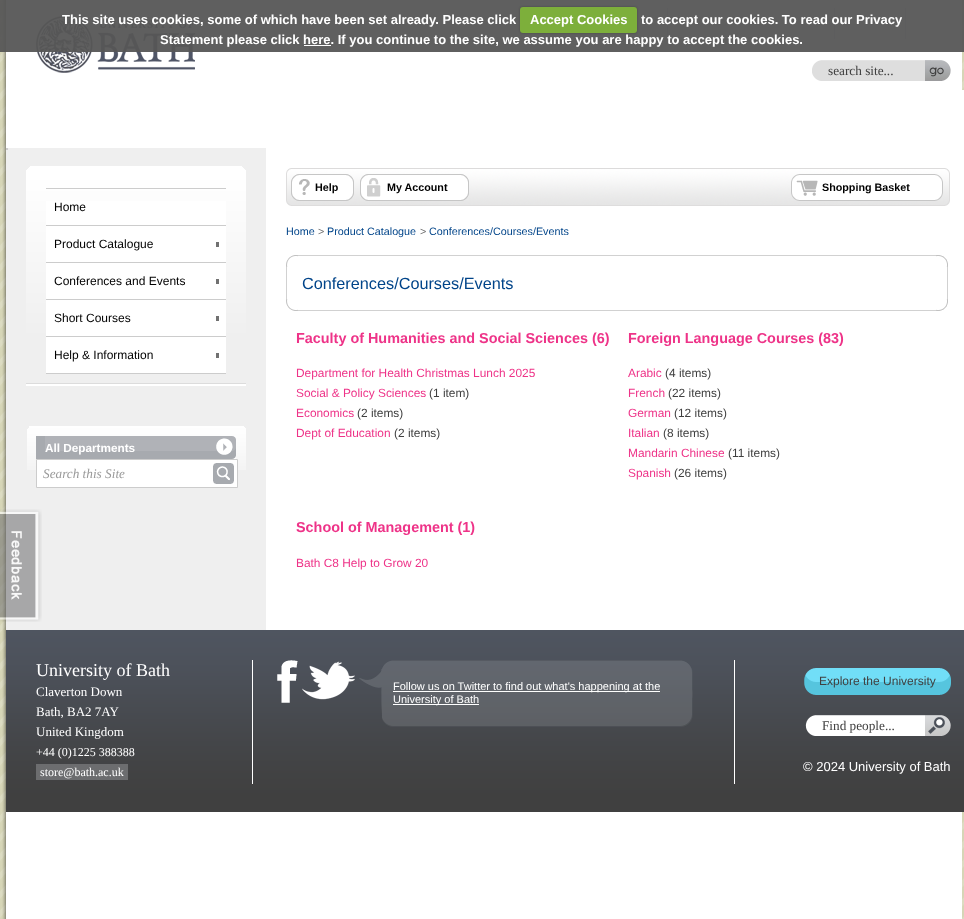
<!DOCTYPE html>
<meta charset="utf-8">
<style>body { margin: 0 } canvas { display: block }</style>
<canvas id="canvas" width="964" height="919"></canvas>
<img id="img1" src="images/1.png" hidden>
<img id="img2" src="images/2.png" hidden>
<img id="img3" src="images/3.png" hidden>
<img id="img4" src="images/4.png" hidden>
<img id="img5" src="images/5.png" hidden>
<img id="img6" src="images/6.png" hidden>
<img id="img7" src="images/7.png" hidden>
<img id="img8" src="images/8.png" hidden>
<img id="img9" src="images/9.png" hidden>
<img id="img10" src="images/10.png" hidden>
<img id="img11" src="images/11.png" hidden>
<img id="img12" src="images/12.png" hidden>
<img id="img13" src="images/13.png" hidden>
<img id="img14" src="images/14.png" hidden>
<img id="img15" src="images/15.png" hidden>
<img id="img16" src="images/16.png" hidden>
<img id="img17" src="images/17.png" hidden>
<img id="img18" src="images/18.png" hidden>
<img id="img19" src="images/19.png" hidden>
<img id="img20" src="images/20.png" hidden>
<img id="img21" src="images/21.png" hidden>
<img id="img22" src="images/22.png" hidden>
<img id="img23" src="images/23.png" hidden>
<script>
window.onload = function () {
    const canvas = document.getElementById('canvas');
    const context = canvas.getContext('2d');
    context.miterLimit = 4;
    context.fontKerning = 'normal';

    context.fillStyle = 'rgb(255, 255, 255)';
    context.fillRect(0, 0, 964, 919);
    context.drawImage(document.getElementById('img1'), 0, 0, 964, 919);
    context.drawImage(document.getElementById('img2'), 2, 0, 960, 919);
    context.drawImage(document.getElementById('img3'), 36, 16, 159, 57);
    context.fillStyle = 'rgb(218, 219, 221)';
    context.fillRect(595, 33, 1, 6);
    context.fillRect(667, 8, 1, 31);
    context.fillRect(834, 8, 1, 31);
    context.fillRect(905, 8, 1, 31);
    context.fillStyle = 'rgba(86, 86, 86, 0.95)';
    context.fillRect(0, 0, 964, 52);
    context.fillStyle = 'rgba(0, 0, 0, 0.25)';
    context.filter = 'blur(1px)';
    context.beginPath();
    context.roundRect(520, 7, 117, 26, 3);
    context.fill();
    context.filter = 'none';
    context.fillStyle = 'rgb(125, 175, 59)';
    context.beginPath();
    context.roundRect(520, 7, 117, 26, 3);
    context.fill();
    context.fillStyle = 'rgb(255, 255, 255)';
    context.fillRect(304, 45, 27, 1);
    context.drawImage(document.getElementById('img4'), 812, 60, 119, 21);
    context.drawImage(document.getElementById('img5'), 925, 60, 26, 21);
    context.fillStyle = 'rgb(239, 239, 239)';
    context.fillRect(6, 148, 260, 482);
    context.drawImage(document.getElementById('img6'), 0, 509, 42, 113);
    context.fillStyle = 'rgb(255, 255, 255)';
    context.fillRect(962, 90, 2, 540);
    context.fillStyle = 'rgb(204, 204, 204)';
    context.fillRect(6, 148, 2, 2);
    context.drawImage(document.getElementById('img7'), 26, 166, 220, 220);
    context.fillRect(46, 188, 180, 1);
    context.fillStyle = 'rgb(255, 255, 255)';
    context.fillRect(46, 201, 180, 24);
    context.fillStyle = 'rgb(204, 204, 204)';
    context.fillRect(46, 225, 180, 1);
    context.fillStyle = 'rgb(255, 255, 255)';
    context.fillRect(46, 226, 180, 36);
    context.fillStyle = 'rgb(204, 204, 204)';
    context.fillRect(46, 262, 180, 1);
    context.fillStyle = 'rgb(113, 113, 113)';
    context.fillRect(216, 242, 3, 5);
    context.fillStyle = 'rgb(255, 255, 255)';
    context.fillRect(46, 263, 180, 36);
    context.fillStyle = 'rgb(204, 204, 204)';
    context.fillRect(46, 299, 180, 1);
    context.fillStyle = 'rgb(113, 113, 113)';
    context.fillRect(216, 279, 3, 5);
    context.fillStyle = 'rgb(255, 255, 255)';
    context.fillRect(46, 300, 180, 36);
    context.fillStyle = 'rgb(204, 204, 204)';
    context.fillRect(46, 336, 180, 1);
    context.fillStyle = 'rgb(113, 113, 113)';
    context.fillRect(216, 316, 3, 5);
    context.fillStyle = 'rgb(255, 255, 255)';
    context.fillRect(46, 337, 180, 36);
    context.fillStyle = 'rgb(204, 204, 204)';
    context.fillRect(46, 373, 180, 1);
    context.fillStyle = 'rgb(113, 113, 113)';
    context.fillRect(216, 353, 3, 5);
    context.drawImage(document.getElementById('img8'), 27, 426, 219, 44);
    context.fillStyle = 'rgb(167, 170, 175)';
    context.fillRect(36, 436, 200, 23);
    context.drawImage(document.getElementById('img9'), 45, 436, 191, 23);
    context.fillStyle = 'rgb(255, 255, 255)';
    context.beginPath();
    context.rect(36.5, 459.5, 201, 28);
    context.fill();
    context.strokeStyle = 'rgb(204, 204, 204)';
    context.stroke();
    context.fillStyle = 'rgb(167, 170, 175)';
    context.fillRect(213, 463, 21, 21);
    context.drawImage(document.getElementById('img10'), 213, 463, 21, 21);
    context.drawImage(document.getElementById('img11'), 286, 168, 664, 38);
    context.drawImage(document.getElementById('img12'), 291, 174, 63, 27);
    context.drawImage(document.getElementById('img13'), 360, 174, 109, 27);
    context.drawImage(document.getElementById('img14'), 791, 174, 152, 27);
    context.strokeStyle = 'rgb(209, 209, 209)';
    context.strokeRect(286.5, 255.5, 661, 55);
    context.drawImage(document.getElementById('img15'), 286, 255, 662, 12);
    context.drawImage(document.getElementById('img16'), 286, 299, 662, 12);
    context.drawImage(document.getElementById('img17'), 6, 630, 958, 182);
    context.fillStyle = 'rgb(108, 109, 111)';
    context.fillRect(36, 764, 92, 16);
    context.fillStyle = 'rgb(255, 255, 255)';
    context.fillRect(734, 660, 1, 124);
    context.fillRect(252, 660, 1, 124);
    context.drawImage(document.getElementById('img18'), 277, 660, 21, 43);
    context.drawImage(document.getElementById('img19'), 302, 661, 53, 39);
    context.drawImage(document.getElementById('img20'), 359, 660, 334, 67);
    context.fillRect(393, 691, 267, 1);
    context.fillRect(393, 704, 86, 1);
    context.drawImage(document.getElementById('img21'), 804, 668, 147, 27);
    context.drawImage(document.getElementById('img22'), 805, 715, 120, 21);
    context.drawImage(document.getElementById('img23'), 925, 715, 26, 21);
    context.font = 'bold 13px Liberation Sans';
    context.fillText('This site uses cookies, some of which have been set already. Please click', 62, 24);
    context.fillText('Accept Cookies', 530, 24);
    context.fillText('to accept our cookies. To read our Privacy', 641, 24);
    context.fillText('Statement please click here. If you continue to the site, we assume you are happy to accept the cookies.', 160, 44);
    context.font = '13.25px Liberation Serif';
    context.fillStyle = 'rgb(64, 64, 64)';
    context.fillText('search site...', 828, 75);
    context.font = '12px Liberation Sans';
    context.fillStyle = 'rgb(0, 0, 0)';
    context.fillText('Home', 54, 211);
    context.fillText('Product Catalogue', 54, 248);
    context.fillText('Conferences and Events', 54, 285);
    context.fillText('Short Courses', 54, 322);
    context.fillText('Help & Information', 54, 359);
    context.font = 'bold 11.75px Liberation Sans';
    context.fillStyle = 'rgb(255, 255, 255)';
    context.fillText('All Departments', 45, 452);
    context.font = 'italic 13.25px Liberation Serif';
    context.fillStyle = 'rgb(153, 153, 153)';
    context.fillText('Search this Site', 43, 478);
    context.font = 'bold 10.75px Liberation Sans';
    context.fillStyle = 'rgb(0, 0, 0)';
    context.fillText('Help', 315, 191);
    context.fillText('My Account', 387, 191);
    context.fillText('Shopping Basket', 822, 191);
    context.font = '10.75px Liberation Sans';
    context.fillStyle = 'rgb(0, 68, 137)';
    context.fillText('Home', 286, 235);
    context.fillStyle = 'rgb(102, 102, 102)';
    context.fillText('>', 318, 235);
    context.fillStyle = 'rgb(0, 68, 137)';
    context.fillText('Product Catalogue', 327, 235);
    context.fillStyle = 'rgb(102, 102, 102)';
    context.fillText('>', 420, 235);
    context.fillStyle = 'rgb(0, 68, 137)';
    context.fillText('Conferences/Courses/Events', 429, 235);
    context.font = '16.25px Liberation Sans';
    context.fillText('Conferences/Courses/Events', 302, 289);
    context.font = 'bold 14.4px Liberation Sans';
    context.fillStyle = 'rgb(238, 51, 136)';
    context.fillText('Faculty of Humanities and Social Sciences (6)', 296, 343);
    context.font = '11.9px Liberation Sans';
    context.fillText('Department for Health Christmas Lunch 2025', 296, 377);
    context.fillText('Social & Policy Sciences', 296, 397);
    context.fillStyle = 'rgb(64, 64, 64)';
    context.fillText('(1 item)', 429, 397);
    context.fillStyle = 'rgb(238, 51, 136)';
    context.fillText('Economics', 296, 417);
    context.fillStyle = 'rgb(64, 64, 64)';
    context.fillText('(2 items)', 357, 417);
    context.fillStyle = 'rgb(238, 51, 136)';
    context.fillText('Dept of Education', 296, 437);
    context.fillStyle = 'rgb(64, 64, 64)';
    context.fillText('(2 items)', 394, 437);
    context.font = 'bold 14.4px Liberation Sans';
    context.fillStyle = 'rgb(238, 51, 136)';
    context.fillText('Foreign Language Courses (83)', 628, 343);
    context.font = '11.9px Liberation Sans';
    context.fillText('Arabic', 628, 377);
    context.fillStyle = 'rgb(64, 64, 64)';
    context.fillText('(4 items)', 665, 377);
    context.fillStyle = 'rgb(238, 51, 136)';
    context.fillText('French', 628, 397);
    context.fillStyle = 'rgb(64, 64, 64)';
    context.fillText('(22 items)', 668, 397);
    context.fillStyle = 'rgb(238, 51, 136)';
    context.fillText('German', 628, 417);
    context.fillStyle = 'rgb(64, 64, 64)';
    context.fillText('(12 items)', 674, 417);
    context.fillStyle = 'rgb(238, 51, 136)';
    context.fillText('Italian', 628, 437);
    context.fillStyle = 'rgb(64, 64, 64)';
    context.fillText('(8 items)', 663, 437);
    context.fillStyle = 'rgb(238, 51, 136)';
    context.fillText('Mandarin Chinese', 628, 457);
    context.fillStyle = 'rgb(64, 64, 64)';
    context.fillText('(11 items)', 728, 457);
    context.fillStyle = 'rgb(238, 51, 136)';
    context.fillText('Spanish', 628, 477);
    context.fillStyle = 'rgb(64, 64, 64)';
    context.fillText('(26 items)', 674, 477);
    context.font = 'bold 14.4px Liberation Sans';
    context.fillStyle = 'rgb(238, 51, 136)';
    context.fillText('School of Management (1)', 296, 532);
    context.font = '11.9px Liberation Sans';
    context.fillText('Bath C8 Help to Grow 20', 296, 567);
    context.font = '18px Liberation Serif';
    context.fillStyle = 'rgb(255, 255, 255)';
    context.fillText('University of Bath', 36, 676);
    context.font = '13px Liberation Serif';
    context.fillText('Claverton Down', 36, 696);
    context.fillText('Bath, BA2 7AY', 36, 716);
    context.fillText('United Kingdom', 36, 736);
    context.font = '12px Liberation Serif';
    context.fillText('+44 (0)1225 388388', 36, 756);
    context.fillText('store@bath.ac.uk', 40, 776);
    context.font = '11px Liberation Sans';
    context.fillText('Follow us on Twitter to find out what\'s happening at the', 393, 690);
    context.fillText('University of Bath', 393, 703);
    context.font = '12px Liberation Sans';
    context.fillStyle = 'rgb(64, 64, 64)';
    context.fillText('Explore the University', 819, 685);
    context.font = '13.25px Liberation Serif';
    context.fillText('Find people...', 822, 730);
    context.font = '13px Liberation Sans';
    context.fillStyle = 'rgb(255, 255, 255)';
    context.fillText('© 2024 University of Bath', 803, 771);
};
</script>
